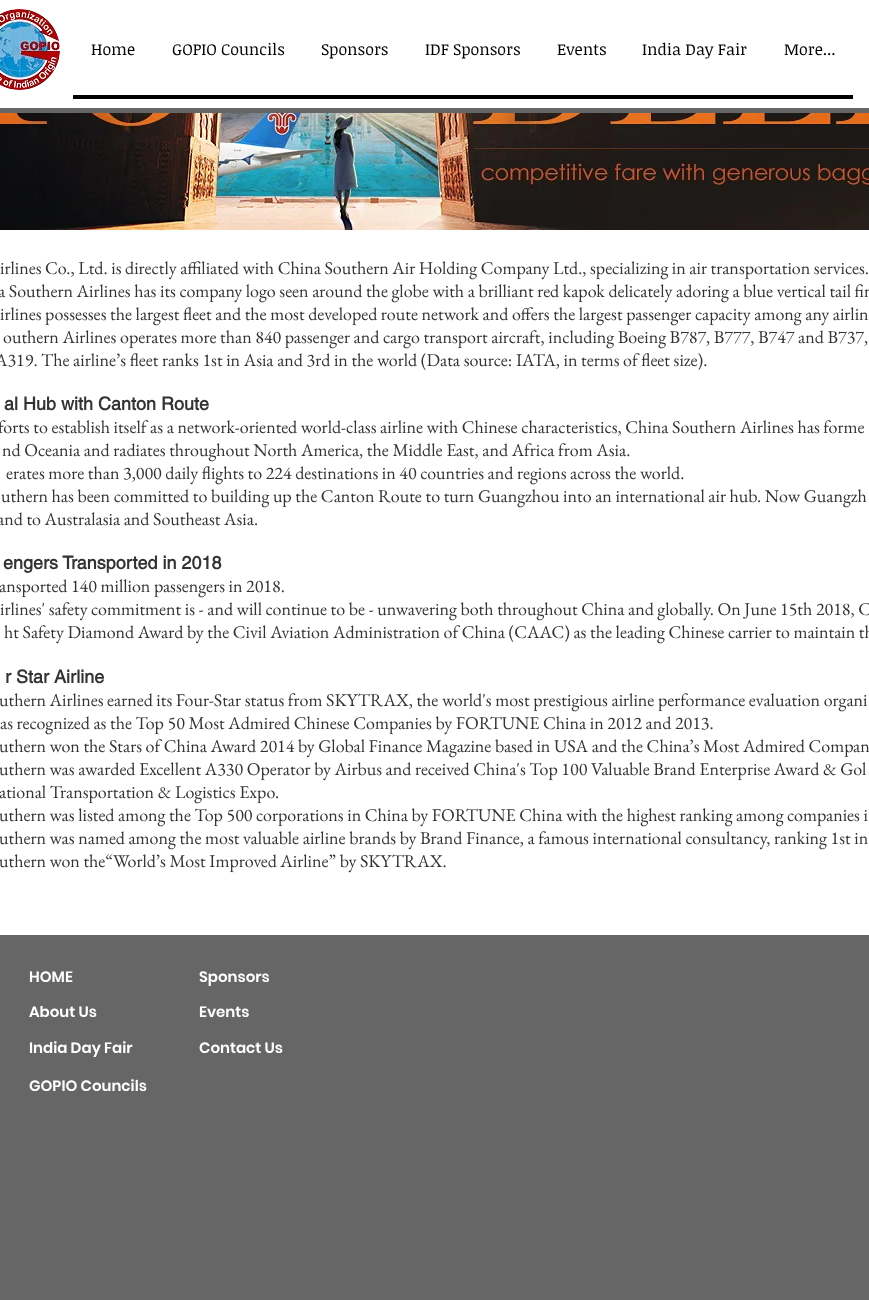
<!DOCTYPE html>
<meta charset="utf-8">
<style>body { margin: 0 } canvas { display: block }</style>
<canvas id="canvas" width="869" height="1300"></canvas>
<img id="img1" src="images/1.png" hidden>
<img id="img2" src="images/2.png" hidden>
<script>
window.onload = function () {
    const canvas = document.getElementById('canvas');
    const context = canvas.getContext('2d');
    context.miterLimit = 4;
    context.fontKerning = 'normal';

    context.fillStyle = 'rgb(255, 255, 255)';
    context.fillRect(0, 0, 869, 1300);
    context.drawImage(document.getElementById('img1'), 0, 9, 60, 81);
    context.fillStyle = 'rgb(0, 0, 0)';
    context.fillRect(73, 95, 780, 4);
    context.fillStyle = 'rgb(102, 102, 102)';
    context.fillRect(0, 108, 869, 5);
    context.drawImage(document.getElementById('img2'), 0, 113, 869, 117);
    context.fillRect(0, 935, 869, 365);
    context.font = '16px Noticia Text';
    context.fillStyle = 'rgb(0, 0, 0)';
    context.fillText('Home', 91, 55);
    context.fillText('GOPIO Councils', 172, 55);
    context.fillText('Sponsors', 321, 55);
    context.fillText('IDF Sponsors', 425, 55);
    context.fillText('Events', 557, 55);
    context.fillText('India Day Fair', 642, 55);
    context.fillText('More...', 784, 55);
    context.font = '18px EB Garamond';
    context.fillStyle = 'rgb(51, 51, 51)';
    context.fillText('irlines Co., Ltd. is directly affiliated with China Southern Air Holding Company Ltd., specializing in air transportation services.', 0, 274);
    context.fillText('a Southern Airlines has its company logo seen around the globe with a brilliant red kapok delicately adoring a blue vertical tail fin', -2, 297);
    context.fillText('irlines possesses the largest fleet and the most developed route network and offers the largest passenger capacity among any airlin', 0, 320);
    context.fillText('outhern Airlines operates more than 840 passenger and cargo transport aircraft, including Boeing B787, B777, B747 and B737,', 3, 343);
    context.fillText('A319. The airline’s fleet ranks 1st in Asia and 3rd in the world (Data source: IATA, in terms of fleet size).', -5, 366);
    context.font = 'bold 18px helvetica';
    context.fillText('al Hub with Canton Route', 4, 410);
    context.font = '18px EB Garamond';
    context.fillText('forts to establish itself as a network-oriented world-class airline with Chinese characteristics, China Southern Airlines has forme', -2, 433);
    context.fillText('nd Oceania and radiates throughout North America, the Middle East, and Africa from Asia.', 2, 456);
    context.fillText('erates more than 3,000 daily flights to 224 destinations in 40 countries and regions across the world.', 6, 479);
    context.fillText('uthern has been committed to building up the Canton Route to turn Guangzhou into an international air hub. Now Guangzh', 1, 502);
    context.fillText('and to Australasia and Southeast Asia.', -3, 525);
    context.font = 'bold 18px helvetica';
    context.fillText('engers Transported in 2018', 3, 569);
    context.font = '18px EB Garamond';
    context.fillText('ansported 140 million passengers in 2018.', -1, 592);
    context.fillText('irlines\' safety commitment is - and will continue to be - unwavering both throughout China and globally. On June 15th 2018, C', 0, 615);
    context.fillText('ht Safety Diamond Award by the Civil Aviation Administration of China (CAAC) as the leading Chinese carrier to maintain th', 4, 638);
    context.font = 'bold 18px helvetica';
    context.fillText('r Star Airline', 5, 683);
    context.font = '18px EB Garamond';
    context.fillText('uthern Airlines earned its Four-Star status from SKYTRAX, the world\'s most prestigious airline performance evaluation organi', -1, 706);
    context.fillText('as recognized as the Top 50 Most Admired Chinese Companies by FORTUNE China in 2012 and 2013.', 0, 729);
    context.fillText('uthern won the Stars of China Award 2014 by Global Finance Magazine based in USA and the China’s Most Admired Compan', -1, 752);
    context.fillText('uthern was awarded Excellent A330 Operator by Airbus and received China\'s Top 100 Valuable Brand Enterprise Award & Gol', -1, 775);
    context.fillText('ational Transportation & Logistics Expo.', -1, 798);
    context.fillText('uthern was listed among the Top 500 corporations in China by FORTUNE China with the highest ranking among companies i', -1, 821);
    context.fillText('uthern was named among the most valuable airline brands by Brand Finance, a famous international consultancy, ranking 1st in', -1, 844);
    context.fillText('uthern won the“World’s Most Improved Airline” by SKYTRAX.', -1, 867);
    context.font = '600 15px Poppins';
    context.fillStyle = 'rgb(255, 255, 255)';
    context.fillText('HOME', 29, 982);
    context.fillText('Sponsors', 199, 982);
    context.fillText('About Us', 29, 1017);
    context.fillText('Events', 199, 1017);
    context.fillText('India Day Fair', 29, 1053);
    context.fillText('Contact Us', 199, 1053);
    context.fillText('GOPIO Councils', 29, 1091);
};
</script>
